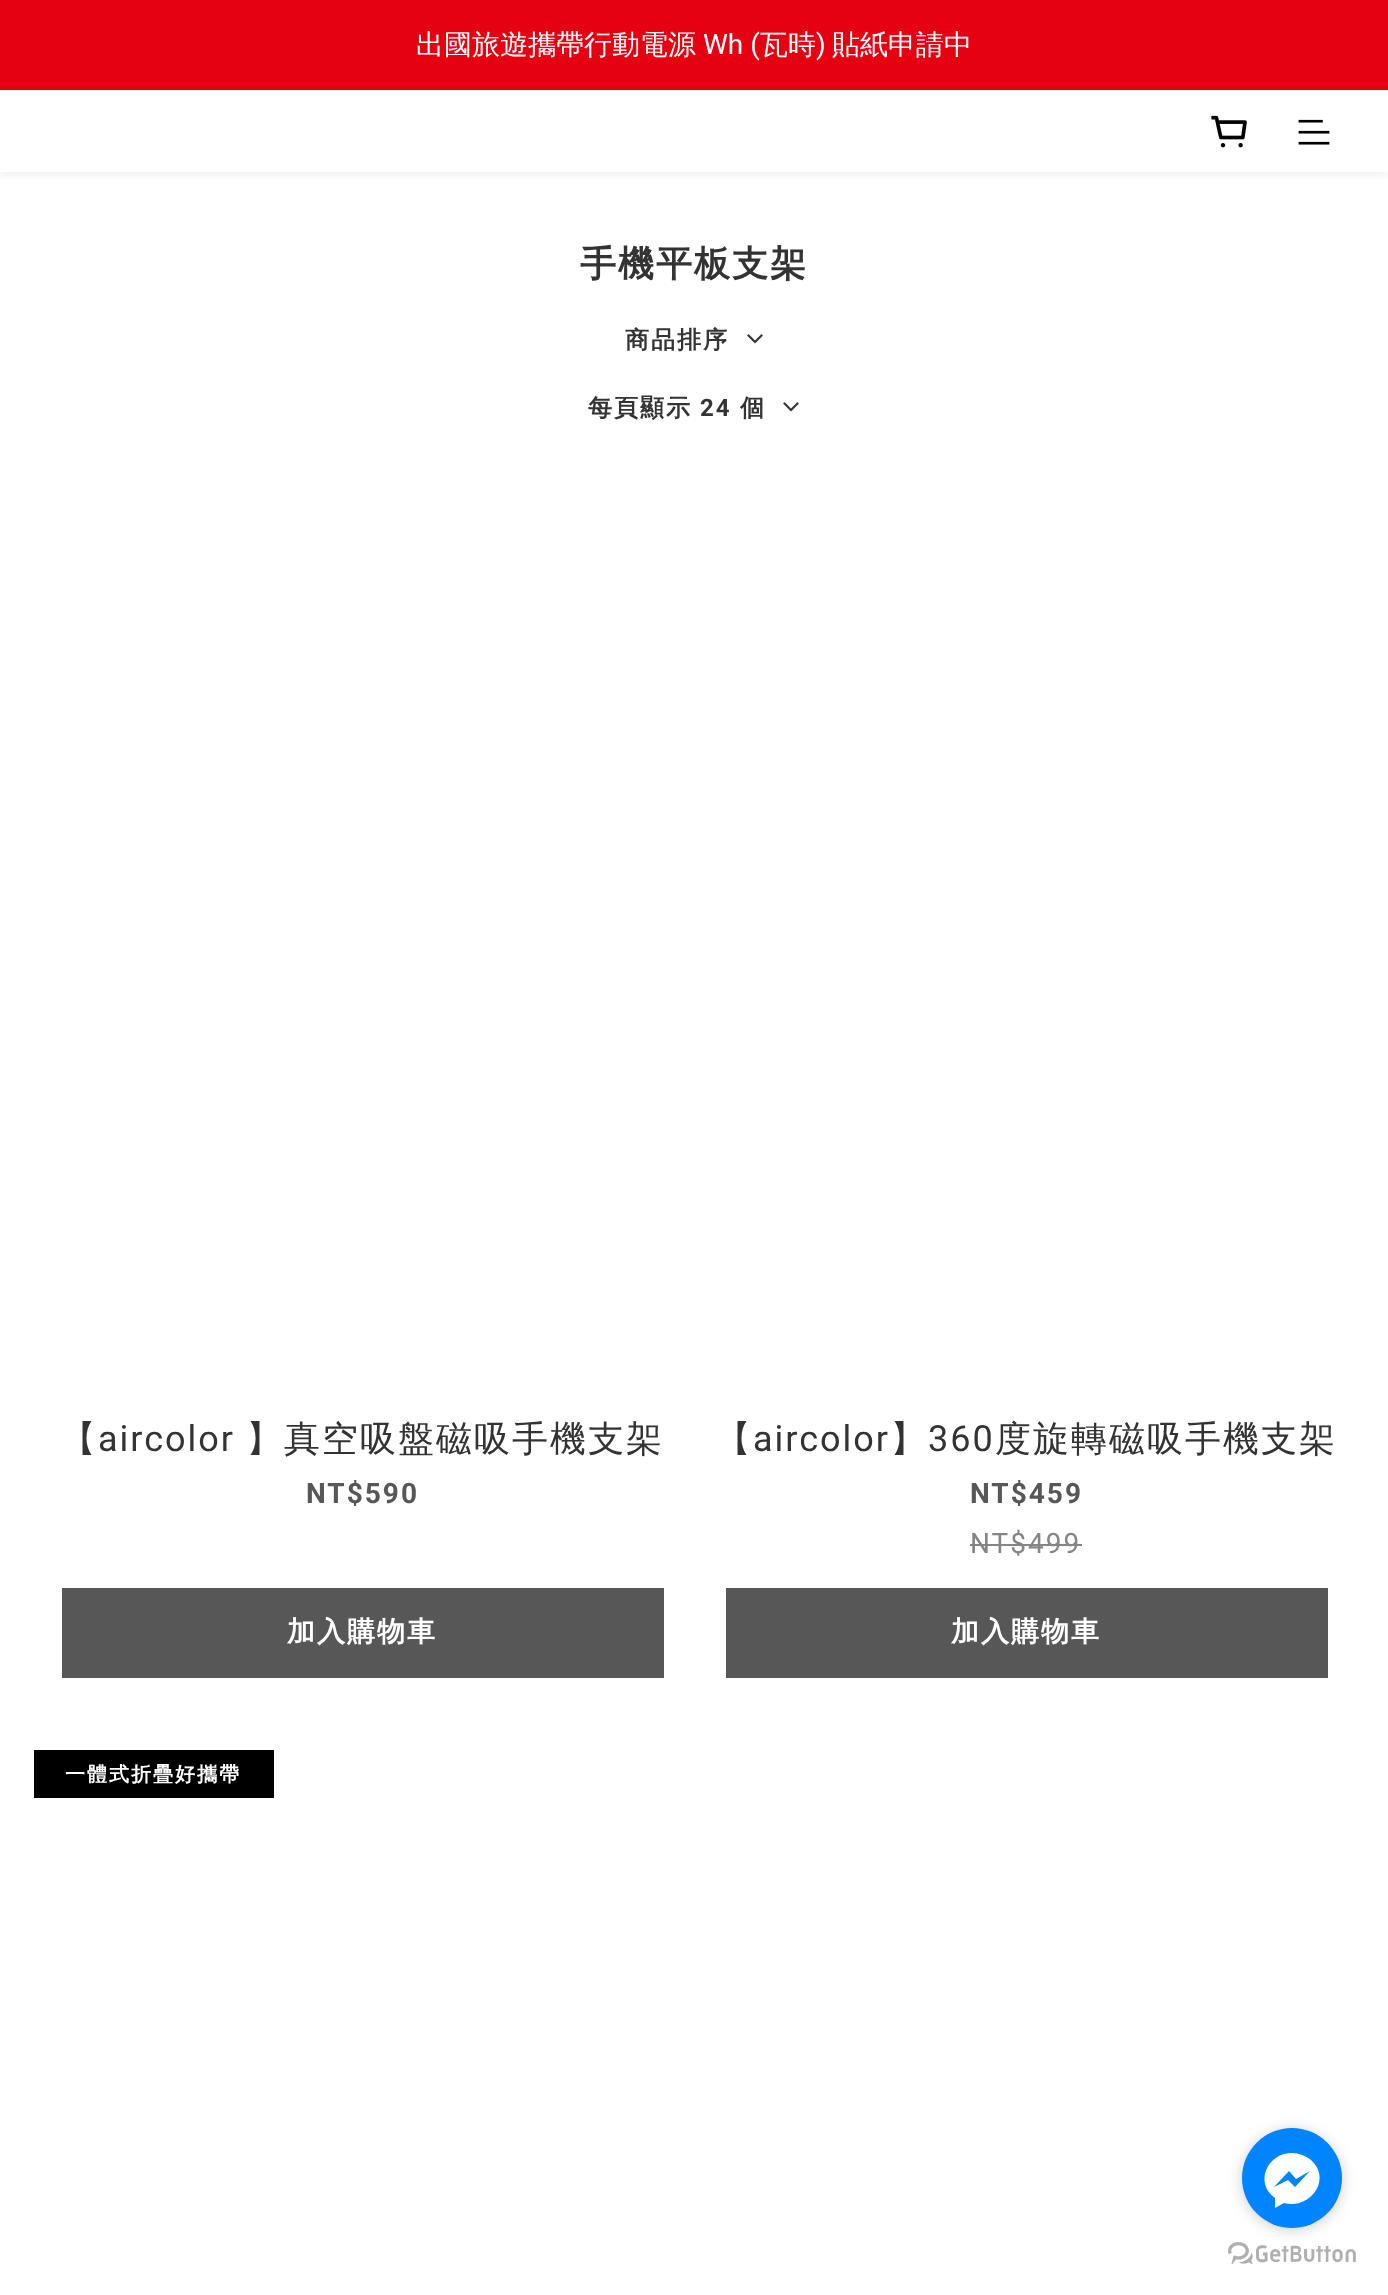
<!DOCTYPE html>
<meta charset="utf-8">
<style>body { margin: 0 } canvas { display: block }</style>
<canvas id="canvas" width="1388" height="2295"></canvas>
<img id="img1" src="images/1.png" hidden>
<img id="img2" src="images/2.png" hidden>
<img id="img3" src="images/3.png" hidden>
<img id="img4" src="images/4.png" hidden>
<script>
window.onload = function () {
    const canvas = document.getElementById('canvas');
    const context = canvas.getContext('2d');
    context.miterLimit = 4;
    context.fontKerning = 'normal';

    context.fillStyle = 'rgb(255, 255, 255)';
    context.fillRect(0, 0, 1388, 2295);
    context.fillStyle = 'rgb(229, 0, 18)';
    context.fillRect(0, 0, 1388, 90);
    context.save();
    context.beginPath();
    context.rect(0, 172, 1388, 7);
    context.clip();
    context.fillStyle = 'rgba(0, 0, 0, 0.06)';
    context.filter = 'blur(6px)';
    context.beginPath();
    context.rect(0, 94, 1388, 82);
    context.fill();
    context.filter = 'none';
    context.restore();
    context.drawImage(document.getElementById('img1'), 1211, 115, 36, 33);
    context.drawImage(document.getElementById('img2'), 1298, 119, 32, 26);
    context.drawImage(document.getElementById('img3'), 747, 334, 16, 10);
    context.drawImage(document.getElementById('img3'), 783, 402, 16, 10);
    context.fillStyle = 'rgb(87, 87, 87)';
    context.fillRect(62, 1588, 602, 90);
    context.fillStyle = 'rgb(133, 133, 133)';
    context.fillRect(970, 1544, 112, 2);
    context.fillStyle = 'rgb(87, 87, 87)';
    context.fillRect(726, 1588, 602, 90);
    context.fillStyle = 'rgb(0, 0, 0)';
    context.fillRect(34, 1750, 240, 48);
    context.drawImage(document.getElementById('img4'), 1228, 2242, 128, 22);
    context.fillStyle = 'rgba(136, 136, 136, 0.4)';
    context.filter = 'blur(7px)';
    context.beginPath();
    context.roundRect(1242, 2130, 100, 100, 50);
    context.fill();
    context.filter = 'none';
    context.fillStyle = 'rgb(0, 132, 255)';
    context.beginPath();
    context.arc(1292, 2178, 50, 0, 2 * Math.PI);
    context.fill();
    context.fillStyle = 'rgb(255, 255, 255)';
    context.beginPath();
    context.moveTo(1292, 2153);
    context.bezierCurveTo(1267, 2153, 1254, 2183, 1275, 2198);
    context.lineTo(1275, 2208);
    context.lineTo(1284, 2203);
    context.bezierCurveTo(1309, 2210, 1333, 2180, 1311, 2160);
    context.bezierCurveTo(1306, 2156, 1299, 2153, 1292, 2153);
    context.closePath();
    context.moveTo(1295, 2187);
    context.lineTo(1288, 2180);
    context.lineTo(1274, 2187);
    context.lineTo(1289, 2171);
    context.lineTo(1296, 2179);
    context.lineTo(1310, 2171);
    context.closePath();
    context.fill();
    context.font = '500 28px WenQuanYi Zen Hei';
    context.fillText('出國旅遊攜帶行動電源', 416, 54);
    context.font = '28px Roboto';
    context.fillText('Wh (', 703, 54);
    context.font = '500 28px WenQuanYi Zen Hei';
    context.fillText('瓦時', 760, 54);
    context.font = '28px Roboto';
    context.fillText(')', 816, 54);
    context.font = '500 28px WenQuanYi Zen Hei';
    context.fillText('貼紙申請中', 832, 54);
    context.letterSpacing = '2px';
    context.font = 'bold 36px WenQuanYi Zen Hei';
    context.fillStyle = 'rgb(51, 51, 51)';
    context.fillText('手機平板支架', 580, 276);
    context.font = 'bold 24px WenQuanYi Zen Hei';
    context.fillText('商品排序', 625, 348);
    context.fillText('每頁顯示', 588, 416);
    context.font = 'bold 24px Roboto';
    context.fillText('24', 700, 416);
    context.font = 'bold 24px WenQuanYi Zen Hei';
    context.fillText('個', 740, 416);
    context.font = '500 36px WenQuanYi Zen Hei';
    context.fillText('【', 60, 1451);
    context.font = '36px Roboto';
    context.fillText('aircolor', 98, 1451);
    context.font = '500 36px WenQuanYi Zen Hei';
    context.fillText('】真空吸盤磁吸手機支架', 246, 1451);
    context.font = 'bold 28px Roboto';
    context.fillStyle = 'rgb(87, 87, 87)';
    context.fillText('NT$590', 306, 1503);
    context.font = 'bold 28px WenQuanYi Zen Hei';
    context.fillStyle = 'rgb(255, 255, 255)';
    context.fillText('加入購物車', 287, 1641);
    context.font = '500 36px WenQuanYi Zen Hei';
    context.fillStyle = 'rgb(51, 51, 51)';
    context.fillText('【', 715, 1451);
    context.font = '36px Roboto';
    context.fillText('aircolor', 753, 1451);
    context.font = '500 36px WenQuanYi Zen Hei';
    context.fillText('】', 890, 1451);
    context.font = '36px Roboto';
    context.fillText('360', 928, 1451);
    context.font = '500 36px WenQuanYi Zen Hei';
    context.fillText('度旋轉磁吸手機支架', 995, 1451);
    context.font = 'bold 28px Roboto';
    context.fillStyle = 'rgb(87, 87, 87)';
    context.fillText('NT$459', 970, 1503);
    context.font = '28px Roboto';
    context.fillStyle = 'rgb(133, 133, 133)';
    context.fillText('NT$499', 970, 1553);
    context.font = 'bold 28px WenQuanYi Zen Hei';
    context.fillStyle = 'rgb(255, 255, 255)';
    context.fillText('加入購物車', 951, 1641);
    context.font = 'bold 20px WenQuanYi Zen Hei';
    context.fillText('一體式折疊好攜帶', 65, 1781);
};
</script>
